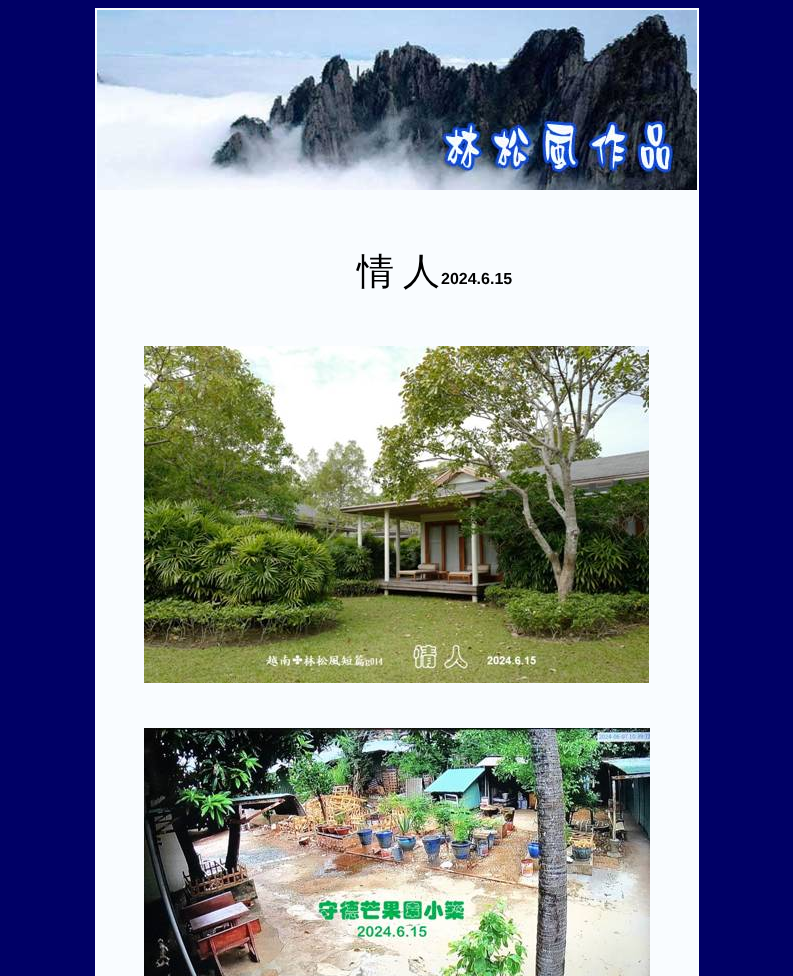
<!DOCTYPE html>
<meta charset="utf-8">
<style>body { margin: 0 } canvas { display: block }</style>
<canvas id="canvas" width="793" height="976"></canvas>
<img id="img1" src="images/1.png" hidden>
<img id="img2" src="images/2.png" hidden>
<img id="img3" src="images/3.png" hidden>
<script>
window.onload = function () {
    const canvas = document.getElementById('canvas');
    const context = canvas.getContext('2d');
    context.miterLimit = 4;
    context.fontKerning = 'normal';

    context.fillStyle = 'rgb(0, 0, 102)';
    context.fillRect(0, 0, 793, 976);
    context.fillStyle = 'rgb(249, 252, 255)';
    context.fillRect(95, 8, 604, 968);
    context.drawImage(document.getElementById('img1'), 97, 10, 600, 180);
    context.drawImage(document.getElementById('img2'), 144, 346, 505, 337);
    context.drawImage(document.getElementById('img3'), 144, 728, 506, 248);
    context.wordSpacing = '-2px';
    context.font = '500 37px WenQuanYi Zen Hei';
    context.fillStyle = 'rgb(0, 0, 0)';
    context.fillText('情 人', 357, 284);
    context.wordSpacing = '0px';
    context.font = 'bold 16px Liberation Sans';
    context.fillText('2024.6.15', 441, 284);
};
</script>
